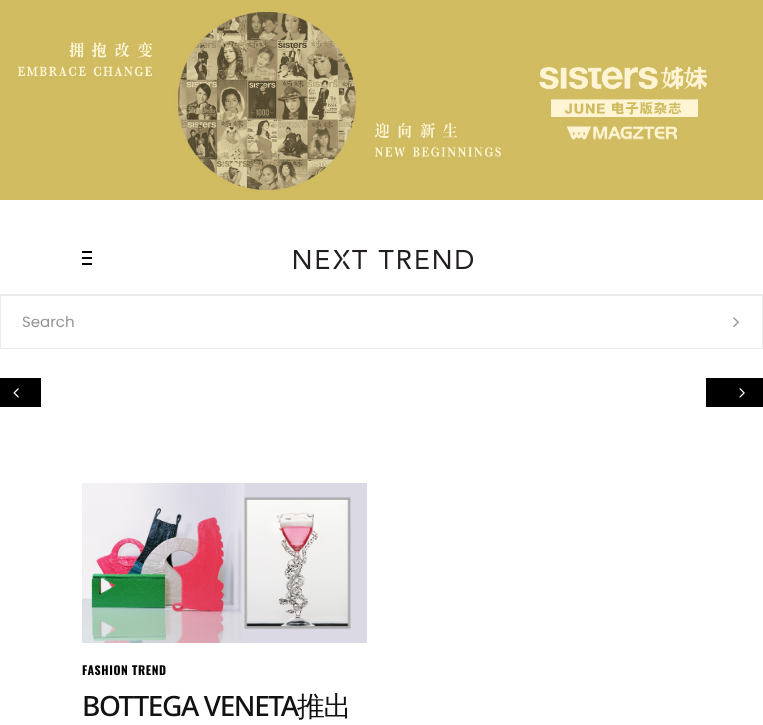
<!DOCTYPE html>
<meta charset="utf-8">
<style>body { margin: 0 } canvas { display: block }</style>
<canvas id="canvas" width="763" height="725"></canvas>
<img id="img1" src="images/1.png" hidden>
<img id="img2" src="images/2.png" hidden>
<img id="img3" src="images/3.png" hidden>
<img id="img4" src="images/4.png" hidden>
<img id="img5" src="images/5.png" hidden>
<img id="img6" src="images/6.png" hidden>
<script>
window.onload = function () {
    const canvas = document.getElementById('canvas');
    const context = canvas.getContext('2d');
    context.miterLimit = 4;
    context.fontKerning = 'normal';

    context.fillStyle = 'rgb(255, 255, 255)';
    context.fillRect(0, 0, 763, 725);
    context.drawImage(document.getElementById('img1'), 0, 0, 763, 200);
    context.fillStyle = 'rgb(235, 235, 235)';
    context.fillRect(0, 294, 763, 1);
    context.fillStyle = 'rgb(0, 0, 0)';
    context.fillRect(82, 251, 10, 2);
    context.fillRect(82, 257, 10, 2);
    context.fillRect(82, 263, 10, 2);
    context.drawImage(document.getElementById('img2'), 294, 250, 179, 19);
    context.strokeStyle = 'rgb(235, 235, 235)';
    context.strokeRect(0.5, 295.5, 762, 53);
    context.drawImage(document.getElementById('img3'), 733, 317, 6, 11);
    context.fillRect(0, 378, 41, 29);
    context.drawImage(document.getElementById('img4'), 13, 388, 6, 10);
    context.fillRect(706, 378, 57, 29);
    context.drawImage(document.getElementById('img5'), 739, 388, 6, 10);
    context.drawImage(document.getElementById('img6'), 82, 483, 285, 160);
    context.font = '15px Poppins';
    context.fillStyle = 'rgb(149, 149, 149)';
    context.fillText('Search', 22, 327);
    context.letterSpacing = '0.6px';
    context.font = 'bold 12px Oswald';
    context.fillStyle = 'rgb(0, 0, 0)';
    context.fillText('FASHION TREND', 82, 675);
    context.letterSpacing = '-1.4px';
    context.font = '500 28px Noto Sans';
    context.fillStyle = 'rgb(18, 18, 18)';
    context.fillText('BOTTEGA VENETA', 82, 716);
    context.font = '500 28px WenQuanYi Zen Hei';
    context.fillText('推出', 297, 716);
};
</script>
